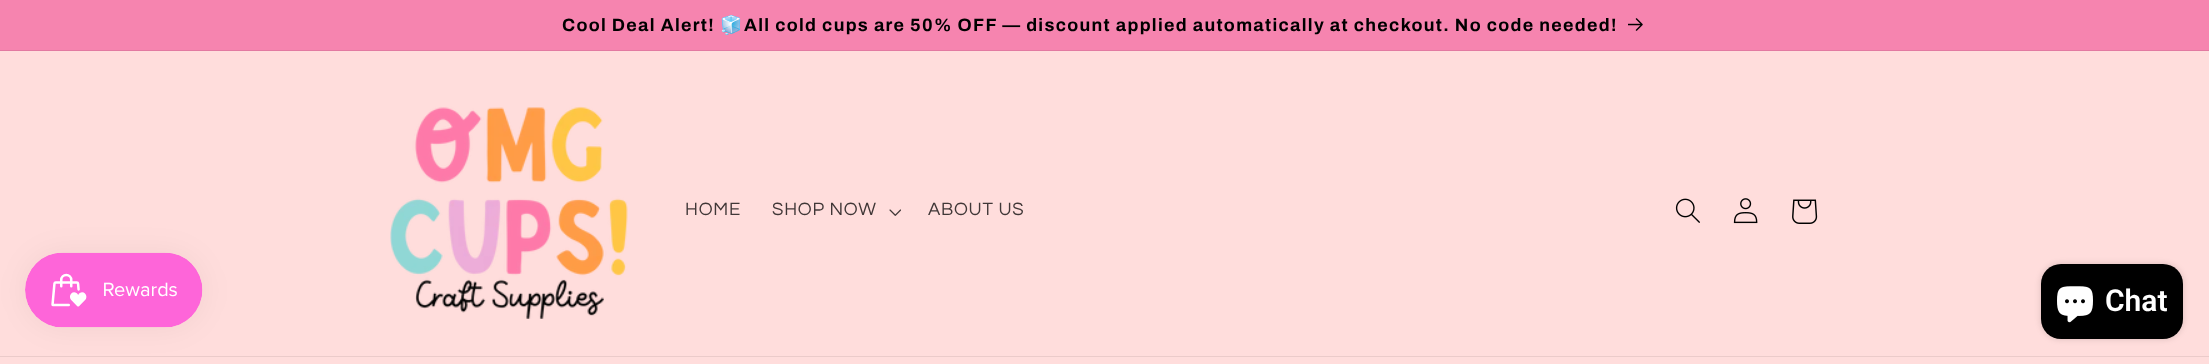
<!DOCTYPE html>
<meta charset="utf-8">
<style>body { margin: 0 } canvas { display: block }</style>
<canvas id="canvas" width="2209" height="364"></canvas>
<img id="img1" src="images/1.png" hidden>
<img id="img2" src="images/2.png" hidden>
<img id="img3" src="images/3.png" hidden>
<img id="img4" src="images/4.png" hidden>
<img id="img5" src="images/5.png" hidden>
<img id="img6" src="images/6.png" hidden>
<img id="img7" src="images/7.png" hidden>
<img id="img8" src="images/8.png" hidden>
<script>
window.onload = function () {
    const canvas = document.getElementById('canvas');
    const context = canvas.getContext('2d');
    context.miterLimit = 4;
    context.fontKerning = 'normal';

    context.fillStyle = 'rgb(255, 221, 220)';
    context.fillRect(0, 0, 2209, 364);
    context.fillStyle = 'rgb(246, 132, 175)';
    context.fillRect(0, 0, 2209, 50);
    context.fillStyle = 'rgb(226, 121, 161)';
    context.fillRect(0, 50, 2209, 1);
    context.drawImage(document.getElementById('img1'), 1628, 18, 15, 13);
    context.fillStyle = 'rgb(235, 203, 202)';
    context.fillRect(0, 356, 2209, 1);
    context.fillStyle = 'rgba(0, 0, 0, 0.05)';
    context.filter = 'blur(15.5px)';
    context.beginPath();
    context.roundRect(25, 253, 178, 75, 37.5);
    context.fill();
    context.filter = 'none';
    context.drawImage(document.getElementById('img2'), 25, 252, 178, 76);
    context.drawImage(document.getElementById('img3'), 390, 106, 238, 213);
    context.drawImage(document.getElementById('img4'), 889, 209, 12, 7);
    context.drawImage(document.getElementById('img5'), 1675, 198, 25, 25);
    context.drawImage(document.getElementById('img6'), 1733, 198, 25, 26);
    context.drawImage(document.getElementById('img7'), 1792, 199, 26, 25);
    context.fillStyle = 'rgba(0, 0, 0, 0.15)';
    context.filter = 'blur(3px)';
    context.beginPath();
    context.roundRect(2041, 264, 142, 75, 20);
    context.fill();
    context.filter = 'none';
    context.fillStyle = 'rgb(0, 0, 0)';
    context.beginPath();
    context.roundRect(2041, 264, 142, 75, 20);
    context.fill();
    context.drawImage(document.getElementById('img8'), 2057, 286, 36, 37);
    context.letterSpacing = '1.3px';
    context.font = 'bold 17.9px Archivo';
    context.fillText('Cool Deal Alert!', 562, 31);
    context.font = 'bold 17.9px Noto Color Emoji';
    context.fillText('🧊', 720, 31);
    context.font = 'bold 17.9px Archivo';
    context.fillText('All cold cups are 50% OFF — discount applied automatically at checkout. No code needed!', 744, 31);
    context.letterSpacing = '0.75px';
    context.font = '18.5px Questrial';
    context.fillStyle = 'rgb(64, 55, 55)';
    context.fillText('HOME', 685, 215);
    context.fillText('SHOP NOW', 772, 215);
    context.fillText('ABOUT US', 928, 215);
    context.letterSpacing = '0px';
    context.font = '600 30px Roboto';
    context.fillStyle = 'rgb(255, 255, 255)';
    context.fillText('Chat', 2105, 311);
};
</script>
